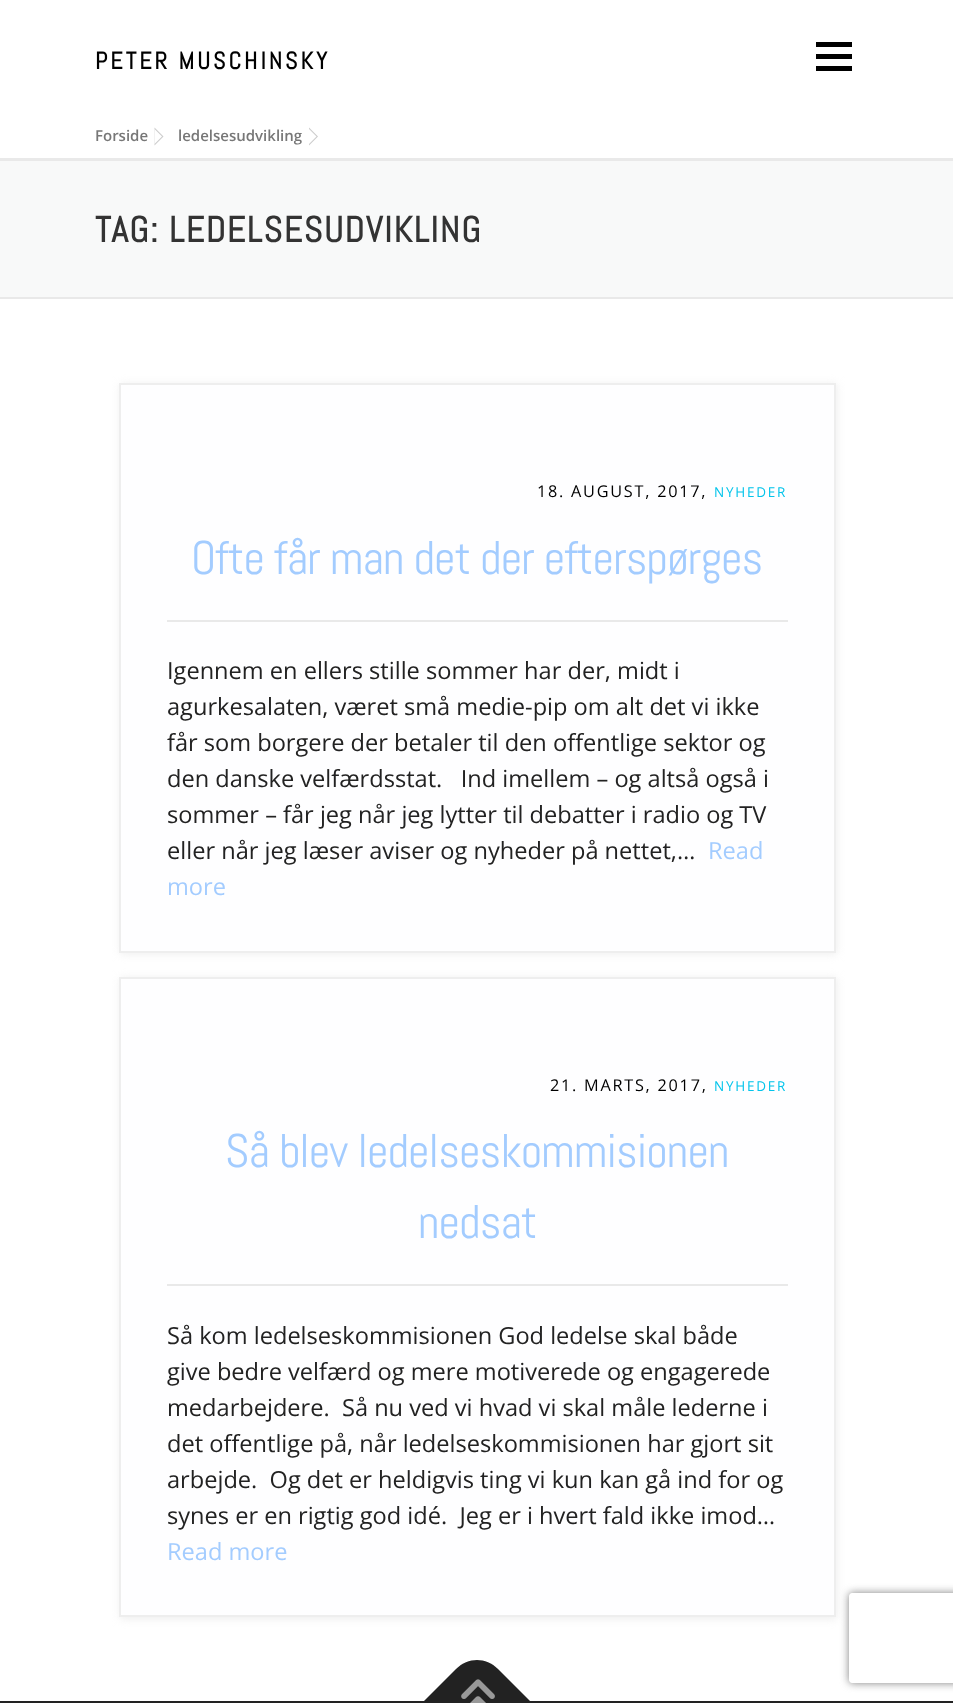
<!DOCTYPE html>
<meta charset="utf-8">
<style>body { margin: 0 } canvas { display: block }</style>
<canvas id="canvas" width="953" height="1703"></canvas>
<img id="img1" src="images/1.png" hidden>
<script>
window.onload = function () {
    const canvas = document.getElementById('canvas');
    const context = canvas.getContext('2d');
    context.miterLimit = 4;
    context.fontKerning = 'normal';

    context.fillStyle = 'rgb(255, 255, 255)';
    context.fillRect(0, 0, 953, 1703);
    context.fillStyle = 'rgb(0, 0, 0)';
    context.fillRect(816, 54, 36, 5);
    context.fillRect(816, 42, 36, 5);
    context.fillRect(816, 66, 36, 5);
    context.fillStyle = 'rgb(233, 233, 233)';
    context.fillRect(0, 158, 953, 3);
    context.fillStyle = 'rgb(204, 204, 204)';
    context.beginPath();
    context.moveTo(154.5, 145.5);
    context.lineTo(154.5, 127.5);
    context.lineTo(163.5, 136.5);
    context.closePath();
    context.fill();
    context.fillStyle = 'rgb(255, 255, 255)';
    context.beginPath();
    context.moveTo(154.5, 144);
    context.lineTo(154.5, 129);
    context.lineTo(162, 136.5);
    context.closePath();
    context.fill();
    context.fillStyle = 'rgb(204, 204, 204)';
    context.beginPath();
    context.moveTo(309, 145.5);
    context.lineTo(309, 127.5);
    context.lineTo(318, 136.5);
    context.closePath();
    context.fill();
    context.fillStyle = 'rgb(255, 255, 255)';
    context.beginPath();
    context.moveTo(309, 144);
    context.lineTo(309, 129);
    context.lineTo(316.5, 136.5);
    context.closePath();
    context.fill();
    context.fillStyle = 'rgb(248, 249, 249)';
    context.fillRect(0, 161, 953, 136);
    context.fillStyle = 'rgb(233, 233, 233)';
    context.fillRect(0, 297, 953, 2);
    context.fillStyle = 'rgb(238, 238, 238)';
    context.filter = 'blur(4px)';
    context.beginPath();
    context.rect(120, 384, 717, 570);
    context.fill();
    context.filter = 'none';
    context.fillStyle = 'rgb(254, 254, 255)';
    context.beginPath();
    context.rect(120, 384, 715, 568);
    context.fill();
    context.strokeStyle = 'rgb(238, 238, 238)';
    context.lineWidth = 2;
    context.stroke();
    context.fillStyle = 'rgb(233, 233, 233)';
    context.fillRect(167, 620, 621, 2);
    context.fillStyle = 'rgb(238, 238, 238)';
    context.filter = 'blur(4px)';
    context.beginPath();
    context.rect(120, 978, 717, 641);
    context.fill();
    context.filter = 'none';
    context.fillStyle = 'rgb(254, 254, 255)';
    context.beginPath();
    context.rect(120, 978, 715, 638);
    context.fill();
    context.stroke();
    context.fillStyle = 'rgb(233, 233, 233)';
    context.fillRect(167, 1284, 621, 2);
    context.fillStyle = 'rgb(34, 34, 34)';
    context.fillRect(0, 1701, 953, 2);
    context.beginPath();
    context.moveTo(424, 1701);
    context.lineTo(456, 1669);
    context.bezierCurveTo(468, 1657, 486, 1657, 498, 1669);
    context.lineTo(530, 1701);
    context.lineTo(477, 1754);
    context.closePath();
    context.fill();
    context.drawImage(document.getElementById('img1'), 461, 1679, 34, 24);
    context.save();
    context.beginPath();
    context.moveTo(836, 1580);
    context.lineTo(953, 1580);
    context.lineTo(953, 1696);
    context.lineTo(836, 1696);
    context.closePath();
    context.moveTo(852, 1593);
    context.lineTo(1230, 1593);
    context.bezierCurveTo(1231.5, 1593, 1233, 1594.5, 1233, 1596);
    context.lineTo(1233, 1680);
    context.bezierCurveTo(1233, 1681.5, 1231.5, 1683, 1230, 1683);
    context.lineTo(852, 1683);
    context.bezierCurveTo(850.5, 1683, 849, 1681.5, 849, 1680);
    context.lineTo(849, 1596);
    context.bezierCurveTo(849, 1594.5, 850.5, 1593, 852, 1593);
    context.closePath();
    context.clip('evenodd');
    context.fillStyle = 'rgb(128, 128, 128)';
    context.filter = 'blur(4px)';
    context.beginPath();
    context.roundRect(849, 1593, 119, 90, 3);
    context.fill();
    context.filter = 'none';
    context.restore();
    context.letterSpacing = '3px';
    context.font = 'bold 24px Abel';
    context.fillStyle = 'rgb(0, 0, 0)';
    context.fillText('PETER MUSCHINSKY', 95, 69);
    context.letterSpacing = '0px';
    context.font = '600 15px Open Sans';
    context.fillStyle = 'rgb(119, 119, 119)';
    context.fillText('Forside', 95, 141);
    context.fillText('ledelsesudvikling', 178, 141);
    context.letterSpacing = '1.5px';
    context.font = 'bold 36px Abel';
    context.fillStyle = 'rgb(51, 51, 51)';
    context.fillText('TAG: LEDELSESUDVIKLING', 95, 242);
    context.letterSpacing = '1.75px';
    context.font = '16.25px Open Sans';
    context.fillStyle = 'rgb(0, 0, 0)';
    context.fillText('18. AUGUST, 2017,', 537, 497);
    context.font = '13.5px Open Sans';
    context.fillStyle = 'rgb(3, 196, 235)';
    context.fillText('NYHEDER', 714, 497);
    context.letterSpacing = '-0.9px';
    context.font = '47.25px Abel';
    context.fillStyle = 'rgb(163, 204, 255)';
    context.fillText('Ofte får man det der efterspørges', 191, 574);
    context.letterSpacing = '0px';
    context.font = '23.6px Open Sans';
    context.fillStyle = 'rgb(34, 34, 34)';
    context.fillText('Igennem en ellers stille sommer har der, midt i', 167, 679);
    context.fillText('agurkesalaten, været små medie-pip om alt det vi ikke', 167, 715);
    context.fillText('får som borgere der betaler til den offentlige sektor og', 167, 751);
    context.fillText('den danske velfærdsstat.   Ind imellem – og altså også i', 167, 787);
    context.fillText('sommer – får jeg når jeg lytter til debatter i radio og TV', 167, 823);
    context.fillText('eller når jeg læser aviser og nyheder på nettet,…', 167, 859);
    context.fillStyle = 'rgb(163, 204, 255)';
    context.fillText('Read', 708, 859);
    context.fillText('more', 167, 895);
    context.letterSpacing = '1.75px';
    context.font = '16.25px Open Sans';
    context.fillStyle = 'rgb(0, 0, 0)';
    context.fillText('21. MARTS, 2017,', 550, 1091);
    context.font = '13.5px Open Sans';
    context.fillStyle = 'rgb(3, 196, 235)';
    context.fillText('NYHEDER', 714, 1091);
    context.letterSpacing = '-0.9px';
    context.font = '47.25px Abel';
    context.fillStyle = 'rgb(163, 204, 255)';
    context.fillText('Så blev ledelseskommisionen', 225, 1167);
    context.fillText('nedsat', 418, 1238);
    context.letterSpacing = '0px';
    context.font = '23.6px Open Sans';
    context.fillStyle = 'rgb(34, 34, 34)';
    context.fillText('Så kom ledelseskommisionen God ledelse skal både', 167, 1344);
    context.fillText('give bedre velfærd og mere motiverede og engagerede', 167, 1380);
    context.fillText('medarbejdere.  Så nu ved vi hvad vi skal måle lederne i', 167, 1416);
    context.fillText('det offentlige på, når ledelseskommisionen har gjort sit', 167, 1452);
    context.fillText('arbejde.  Og det er heldigvis ting vi kun kan gå ind for og', 167, 1488);
    context.fillText('synes er en rigtig god idé.  Jeg er i hvert fald ikke imod…', 167, 1524);
    context.fillStyle = 'rgb(163, 204, 255)';
    context.fillText('Read more', 167, 1560);
};
</script>
